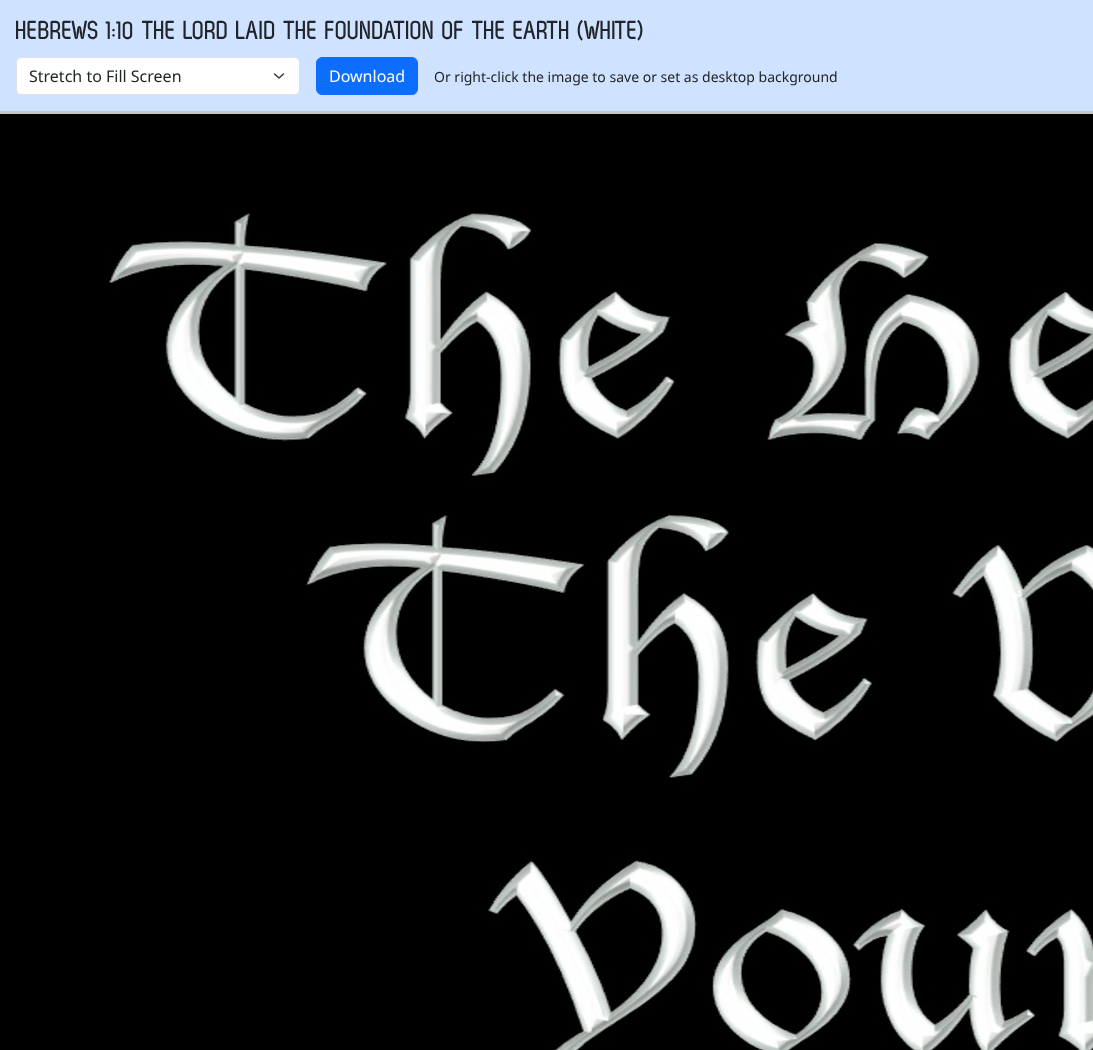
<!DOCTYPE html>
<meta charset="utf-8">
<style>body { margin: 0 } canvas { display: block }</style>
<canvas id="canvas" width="1093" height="1050"></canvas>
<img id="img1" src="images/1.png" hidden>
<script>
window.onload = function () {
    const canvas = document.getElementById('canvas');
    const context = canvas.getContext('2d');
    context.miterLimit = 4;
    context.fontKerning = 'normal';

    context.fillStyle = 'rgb(207, 226, 255)';
    context.fillRect(0, 0, 1093, 1050);
    context.fillStyle = 'rgb(196, 200, 203)';
    context.fillRect(0, 111, 1093, 3);
    context.fillStyle = 'rgb(255, 255, 255)';
    context.beginPath();
    context.roundRect(16, 57, 284, 38, 6);
    context.fill();
    context.beginPath();
    context.moveTo(274.5, 74);
    context.lineTo(279, 78);
    context.lineTo(283.5, 74);
    context.strokeStyle = 'rgb(52, 58, 64)';
    context.lineWidth = 1.5;
    context.lineCap = 'round';
    context.lineJoin = 'round';
    context.stroke();
    context.beginPath();
    context.roundRect(16.5, 57.5, 283, 37, 5.5);
    context.strokeStyle = 'rgb(222, 226, 230)';
    context.lineWidth = 1;
    context.lineJoin = 'miter';
    context.stroke();
    context.fillStyle = 'rgb(13, 110, 253)';
    context.beginPath();
    context.roundRect(316.5, 57.5, 101, 37, 5.5);
    context.fill();
    context.strokeStyle = 'rgb(13, 110, 253)';
    context.stroke();
    context.drawImage(document.getElementById('img1'), 0, 114, 1093, 936);
    context.font = 'bold 26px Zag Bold';
    context.fillStyle = 'rgb(33, 37, 41)';
    context.fillText('HEBREWS 1:10 THE LORD LAID THE FOUNDATION OF THE EARTH (WHITE)', 16, 39);
    context.font = '16px Noto Sans';
    context.fillText('Stretch to Fill Screen', 29, 82);
    context.fillStyle = 'rgb(255, 255, 255)';
    context.fillText('Download', 329, 82);
    context.font = '14px Noto Sans';
    context.fillStyle = 'rgb(33, 37, 41)';
    context.fillText('Or right-click the image to save or set as desktop background', 434, 82);
};
</script>
